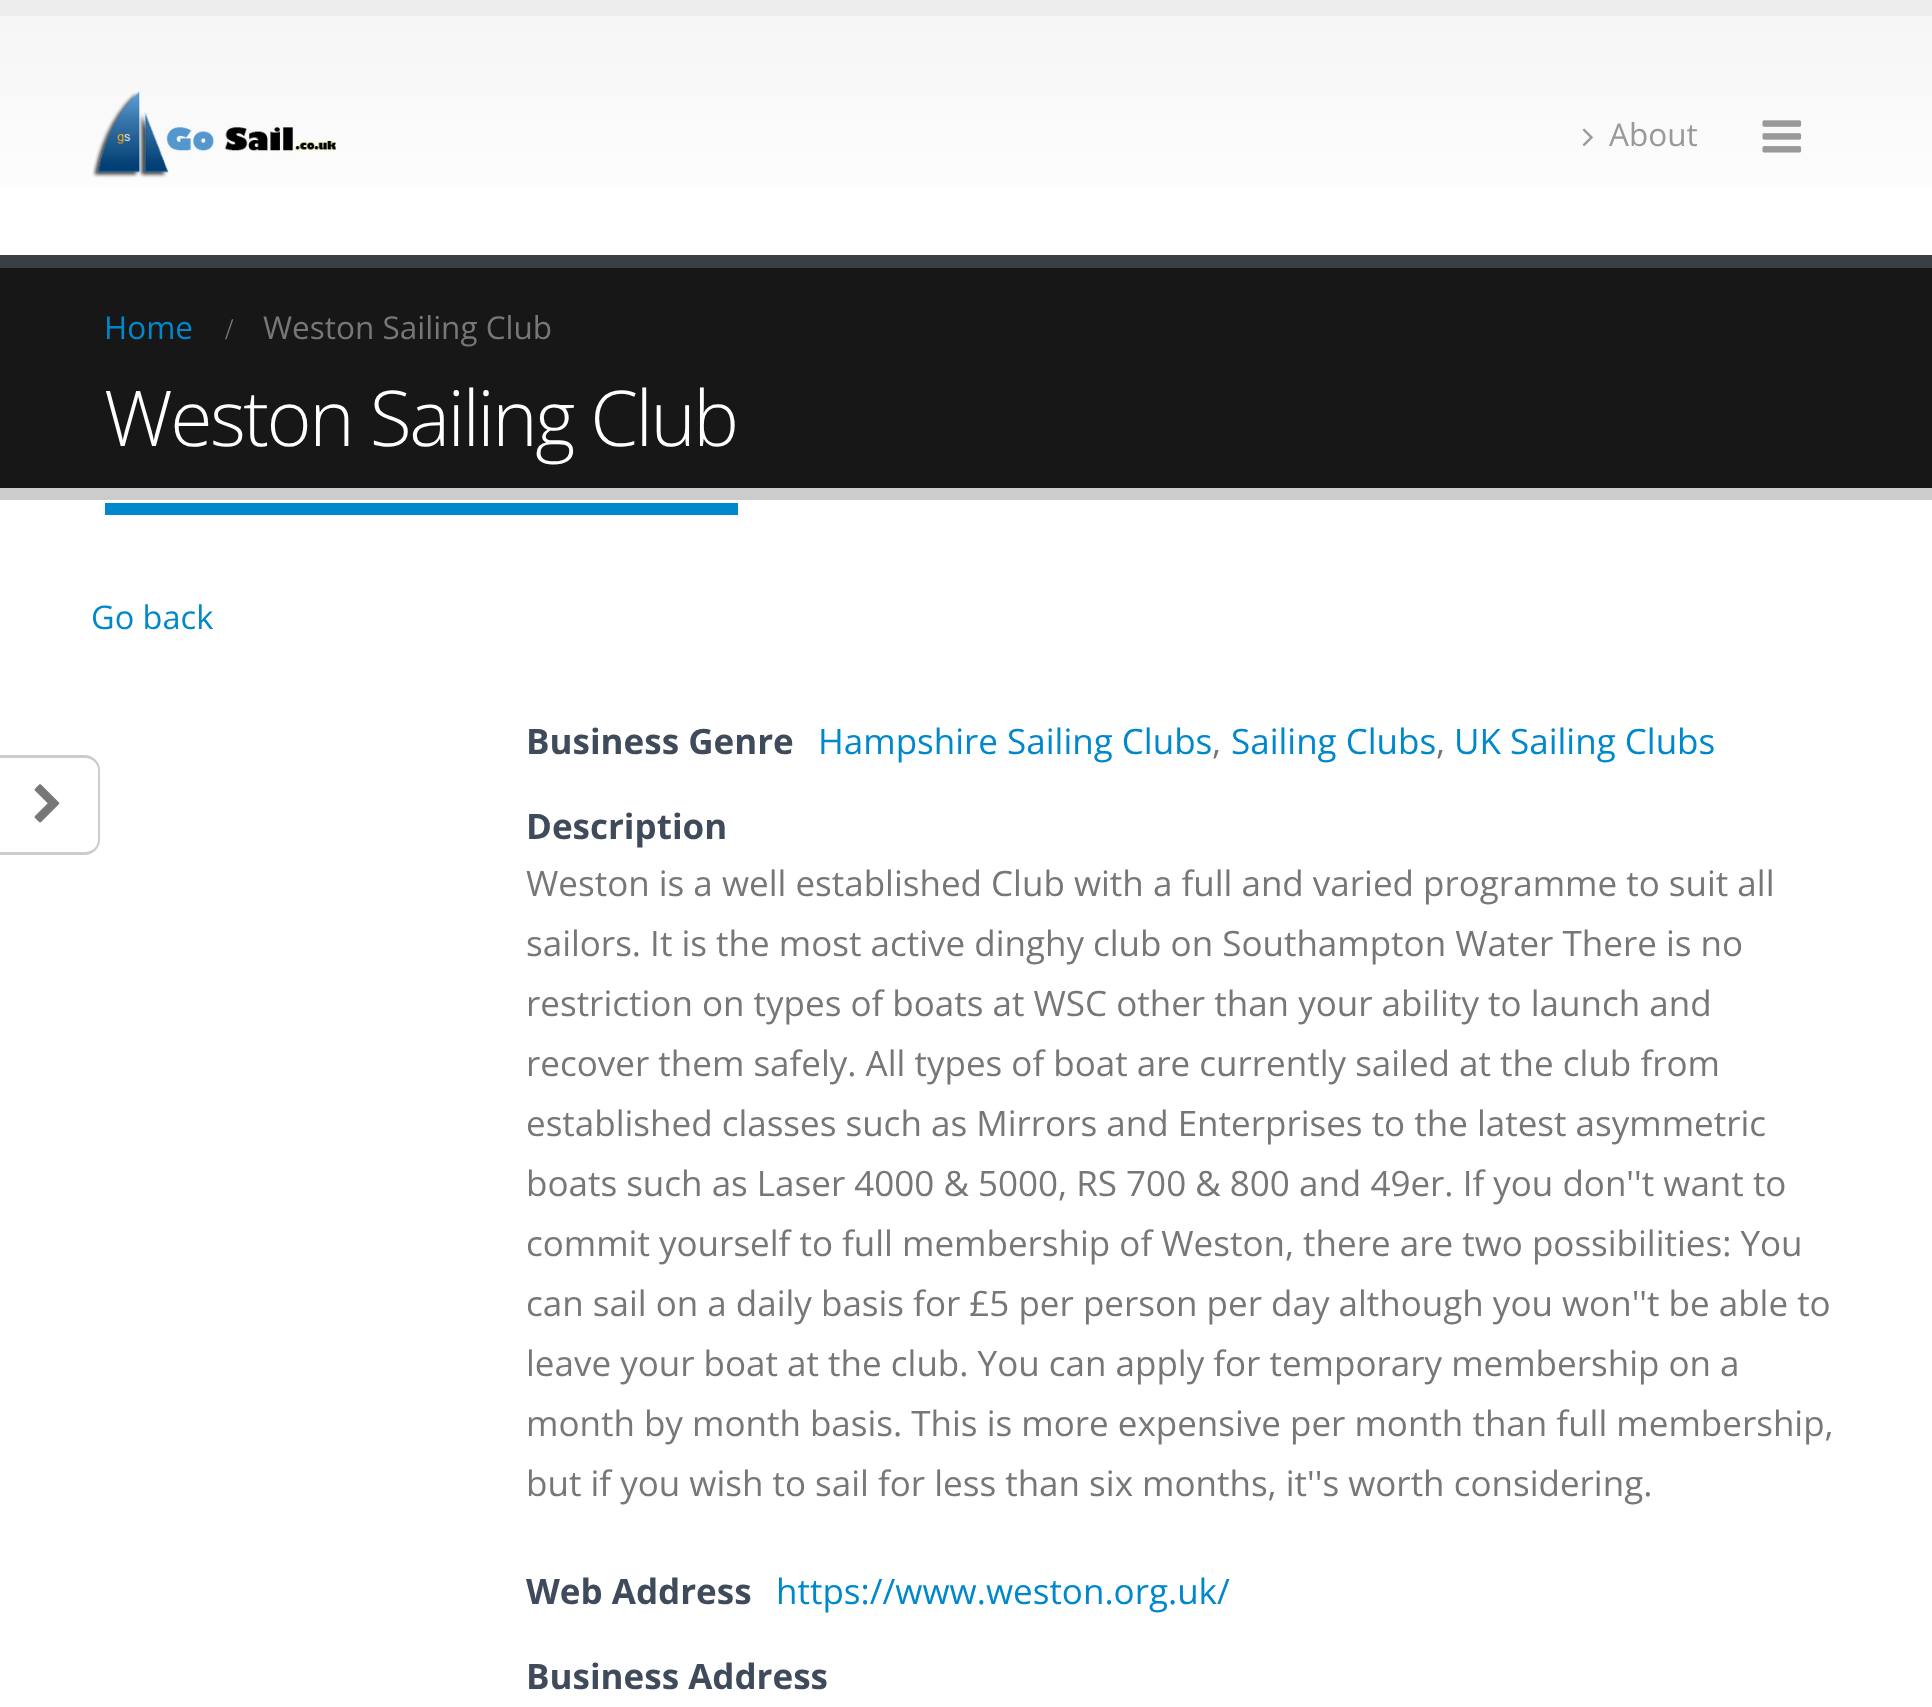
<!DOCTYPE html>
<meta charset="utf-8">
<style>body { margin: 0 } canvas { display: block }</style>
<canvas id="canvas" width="1932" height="1707"></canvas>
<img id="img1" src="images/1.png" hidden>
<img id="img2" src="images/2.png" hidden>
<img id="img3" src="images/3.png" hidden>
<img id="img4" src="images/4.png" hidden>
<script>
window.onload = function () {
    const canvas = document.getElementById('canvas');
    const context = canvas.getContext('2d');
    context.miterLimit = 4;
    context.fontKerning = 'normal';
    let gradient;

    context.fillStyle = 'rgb(255, 255, 255)';
    context.fillRect(0, 0, 1932, 1707);
    context.fillStyle = 'rgb(204, 204, 204)';
    context.beginPath();
    context.moveTo(0, 755);
    context.lineTo(85, 755);
    context.bezierCurveTo(93, 755, 100, 762, 100, 770);
    context.lineTo(100, 840);
    context.bezierCurveTo(100, 848, 93, 855, 85, 855);
    context.lineTo(0, 855);
    context.closePath();
    context.moveTo(0, 758);
    context.lineTo(85, 758);
    context.bezierCurveTo(92, 758, 98, 763, 98, 770);
    context.lineTo(98, 840);
    context.bezierCurveTo(98, 847, 92, 852, 85, 852);
    context.lineTo(0, 852);
    context.closePath();
    context.fill('evenodd');
    context.drawImage(document.getElementById('img1'), 34, 784, 26, 39);
    context.fillStyle = 'rgb(237, 237, 237)';
    context.fillRect(0, 0, 1932, 16);
    gradient = context.createLinearGradient(966, 15, 966, 255);
    gradient.addColorStop(0, 'rgb(246, 246, 246)');
    gradient.addColorStop(1, 'rgb(255, 255, 255)');
    context.fillStyle = gradient;
    context.fillRect(0, 16, 1932, 172);
    context.drawImage(document.getElementById('img2'), 92, 91, 246, 87);
    context.drawImage(document.getElementById('img3'), 1582, 128, 11, 19);
    context.drawImage(document.getElementById('img4'), 1762, 120, 40, 33);
    context.fillStyle = 'rgb(23, 23, 23)';
    context.fillRect(0, 268, 1932, 220);
    context.fillStyle = 'rgb(56, 64, 69)';
    context.fillRect(0, 255, 1932, 13);
    context.fillStyle = 'rgb(204, 204, 204)';
    context.fillRect(0, 488, 1932, 12);
    context.fillStyle = 'rgb(0, 136, 204)';
    context.fillRect(105, 503, 633, 12);
    context.font = '31.5px Open Sans';
    context.fillStyle = 'rgb(153, 153, 153)';
    context.fillText('About', 1609, 146);
    context.fillStyle = 'rgb(0, 136, 204)';
    context.fillText('Home', 104, 339);
    context.font = '30px Liberation Serif';
    context.fillStyle = 'rgb(119, 119, 119)';
    context.fillText('/', 225, 339);
    context.font = '31.5px Open Sans';
    context.fillText('Weston Sailing Club', 263, 339);
    context.letterSpacing = '-2.5px';
    context.font = '300 77px Open Sans';
    context.fillStyle = 'rgb(255, 255, 255)';
    context.fillText('Weston Sailing Club', 104, 446);
    context.letterSpacing = '0px';
    context.font = '32.5px Open Sans';
    context.fillStyle = 'rgb(0, 136, 204)';
    context.fillText('Go back', 91, 629);
    context.font = 'bold 35px Open Sans';
    context.fillStyle = 'rgb(63, 75, 91)';
    context.fillText('Business Genre', 526, 754);
    context.font = '35px Open Sans';
    context.fillStyle = 'rgb(0, 136, 204)';
    context.fillText('Hampshire Sailing Clubs', 818, 754);
    context.fillStyle = 'rgb(119, 119, 119)';
    context.fillText(',', 1212, 754);
    context.fillStyle = 'rgb(0, 136, 204)';
    context.fillText('Sailing Clubs', 1231, 754);
    context.fillStyle = 'rgb(119, 119, 119)';
    context.fillText(',', 1436, 754);
    context.fillStyle = 'rgb(0, 136, 204)';
    context.fillText('UK Sailing Clubs', 1454, 754);
    context.font = 'bold 35px Open Sans';
    context.fillStyle = 'rgb(63, 75, 91)';
    context.fillText('Description', 526, 839);
    context.font = '35px Open Sans';
    context.fillStyle = 'rgb(119, 119, 119)';
    context.fillText('Weston is a well established Club with a full and varied programme to suit all', 526, 896);
    context.fillText('sailors. It is the most active dinghy club on Southampton Water There is no', 526, 956);
    context.fillText('restriction on types of boats at WSC other than your ability to launch and', 526, 1016);
    context.fillText('recover them safely. All types of boat are currently sailed at the club from', 526, 1076);
    context.fillText('established classes such as Mirrors and Enterprises to the latest asymmetric', 526, 1136);
    context.fillText('boats such as Laser 4000 & 5000, RS 700 & 800 and 49er. If you don\'\'t want to', 526, 1196);
    context.fillText('commit yourself to full membership of Weston, there are two possibilities: You', 526, 1256);
    context.fillText('can sail on a daily basis for £5 per person per day although you won\'\'t be able to', 526, 1316);
    context.fillText('leave your boat at the club. You can apply for temporary membership on a', 526, 1376);
    context.fillText('month by month basis. This is more expensive per month than full membership,', 526, 1436);
    context.fillText('but if you wish to sail for less than six months, it\'\'s worth considering.', 526, 1496);
    context.font = 'bold 35px Open Sans';
    context.fillStyle = 'rgb(63, 75, 91)';
    context.fillText('Web Address', 526, 1604);
    context.font = '35px Open Sans';
    context.fillStyle = 'rgb(0, 136, 204)';
    context.fillText('https://www.weston.org.uk/', 776, 1604);
    context.font = 'bold 35px Open Sans';
    context.fillStyle = 'rgb(63, 75, 91)';
    context.fillText('Business Address', 526, 1689);
};
</script>
